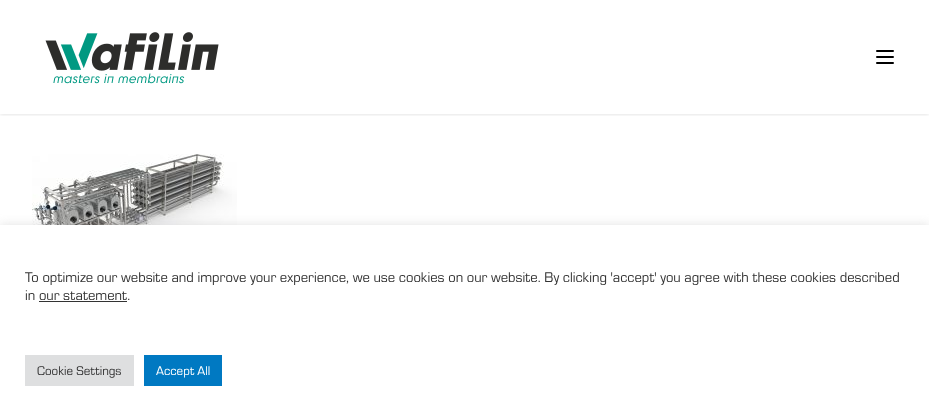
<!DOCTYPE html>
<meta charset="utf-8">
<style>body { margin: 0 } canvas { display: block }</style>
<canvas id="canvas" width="929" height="416"></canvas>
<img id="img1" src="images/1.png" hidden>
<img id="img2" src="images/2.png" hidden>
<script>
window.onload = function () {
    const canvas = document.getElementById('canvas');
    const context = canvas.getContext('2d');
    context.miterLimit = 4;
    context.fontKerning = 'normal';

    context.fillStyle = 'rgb(255, 255, 255)';
    context.fillRect(0, 0, 929, 416);
    context.save();
    context.beginPath();
    context.rect(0, 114, 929, 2);
    context.clip();
    context.fillStyle = 'rgba(0, 0, 0, 0.15)';
    context.filter = 'blur(2px)';
    context.beginPath();
    context.rect(0, 0, 929, 114);
    context.fill();
    context.filter = 'none';
    context.restore();
    context.drawImage(document.getElementById('img1'), 45, 32, 174, 52);
    context.beginPath();
    context.moveTo(877, 51);
    context.lineTo(893, 51);
    context.moveTo(877, 57);
    context.lineTo(893, 57);
    context.moveTo(877, 63);
    context.lineTo(893, 63);
    context.strokeStyle = 'rgb(0, 0, 0)';
    context.lineWidth = 2;
    context.lineCap = 'round';
    context.lineJoin = 'round';
    context.stroke();
    context.drawImage(document.getElementById('img2'), 32, 154, 205, 71);
    context.fillStyle = 'rgba(172, 171, 171, 0.3)';
    context.filter = 'blur(5px)';
    context.beginPath();
    context.rect(0, 224, 929, 191);
    context.fill();
    context.filter = 'none';
    context.fillStyle = 'rgb(255, 255, 255)';
    context.fillRect(0, 225, 929, 191);
    context.fillStyle = 'rgb(51, 51, 51)';
    context.fillRect(39, 301, 88, 1);
    context.fillStyle = 'rgb(222, 223, 224)';
    context.fillRect(25, 355, 109, 31);
    context.fillStyle = 'rgb(0, 121, 194)';
    context.fillRect(144, 355, 78, 31);
    context.font = '14.67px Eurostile';
    context.fillStyle = 'rgb(51, 51, 51)';
    context.fillText('To optimize our website and improve your experience, we use cookies on our website. By clicking \'accept\' you agree with these cookies described', 25, 282);
    context.fillText('in our statement.', 25, 300);
    context.font = '13px Eurostile';
    context.fillText('Cookie Settings', 37, 375);
    context.fillStyle = 'rgb(255, 255, 255)';
    context.fillText('Accept All', 156, 375);
};
</script>
